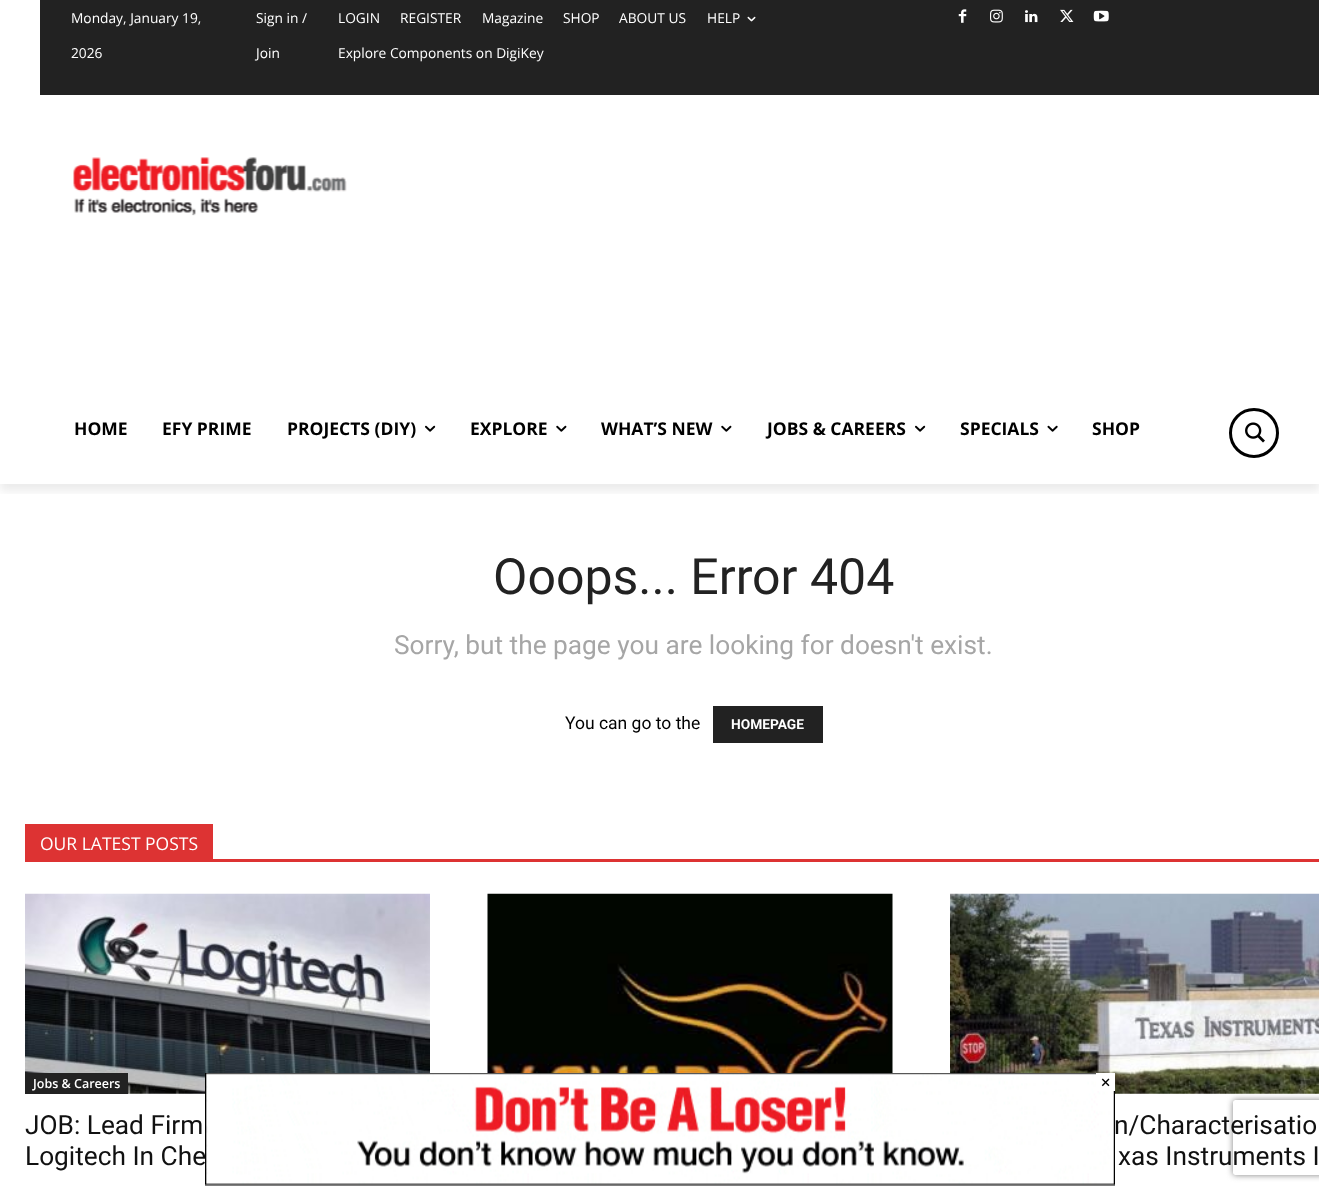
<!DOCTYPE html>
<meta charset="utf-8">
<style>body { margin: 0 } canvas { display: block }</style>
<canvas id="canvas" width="1319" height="1192"></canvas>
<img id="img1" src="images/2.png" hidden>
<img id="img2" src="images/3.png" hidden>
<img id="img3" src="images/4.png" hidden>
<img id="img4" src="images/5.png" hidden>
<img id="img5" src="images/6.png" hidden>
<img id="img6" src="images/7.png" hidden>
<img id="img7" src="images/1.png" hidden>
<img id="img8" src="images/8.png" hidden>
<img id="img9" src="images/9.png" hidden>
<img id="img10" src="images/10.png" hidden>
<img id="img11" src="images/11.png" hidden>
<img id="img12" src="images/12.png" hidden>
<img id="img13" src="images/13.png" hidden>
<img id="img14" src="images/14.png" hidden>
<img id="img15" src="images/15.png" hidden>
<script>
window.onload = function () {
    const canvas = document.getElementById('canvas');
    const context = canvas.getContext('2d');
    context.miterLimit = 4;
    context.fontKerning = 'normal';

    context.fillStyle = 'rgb(255, 255, 255)';
    context.fillRect(0, 0, 1319, 1192);
    context.fillStyle = 'rgb(34, 34, 34)';
    context.fillRect(40, 0, 1279, 95);
    context.drawImage(document.getElementById('img1'), 958, 9, 9, 14);
    context.drawImage(document.getElementById('img2'), 990, 9, 13, 14);
    context.drawImage(document.getElementById('img3'), 1025, 10, 13, 13);
    context.drawImage(document.getElementById('img4'), 1060, 9, 14, 13);
    context.drawImage(document.getElementById('img5'), 1093, 10, 16, 12);
    context.drawImage(document.getElementById('img6'), 73, 157, 274, 59);
    context.save();
    context.beginPath();
    context.rect(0, 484, 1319, 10);
    context.clip();
    context.fillStyle = 'rgba(0, 0, 0, 0.08)';
    context.filter = 'blur(5px)';
    context.beginPath();
    context.rect(0, 8, 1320, 483);
    context.fill();
    context.filter = 'none';
    context.restore();
    context.drawImage(document.getElementById('img7'), 747, 16, 9, 6);
    context.drawImage(document.getElementById('img8'), 425, 425, 11, 7);
    context.drawImage(document.getElementById('img9'), 556, 425, 11, 7);
    context.drawImage(document.getElementById('img9'), 721, 425, 11, 7);
    context.drawImage(document.getElementById('img8'), 915, 425, 11, 7);
    context.drawImage(document.getElementById('img10'), 1047, 425, 11, 7);
    context.beginPath();
    context.arc(1254, 433, 23.5, 0, 2 * Math.PI);
    context.strokeStyle = 'rgb(0, 0, 0)';
    context.lineWidth = 3;
    context.stroke();
    context.drawImage(document.getElementById('img11'), 1245, 422, 20, 21);
    context.fillRect(713, 706, 110, 37);
    context.fillStyle = 'rgb(221, 51, 51)';
    context.fillRect(25, 859, 1294, 3);
    context.fillRect(25, 824, 188, 35);
    context.drawImage(document.getElementById('img12'), 487, 893, 406, 180);
    context.drawImage(document.getElementById('img13'), 25, 893, 405, 201);
    context.fillStyle = 'rgb(34, 34, 34)';
    context.fillRect(25, 1073, 103, 21);
    context.drawImage(document.getElementById('img14'), 950, 893, 369, 201);
    context.save();
    context.beginPath();
    context.moveTo(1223, 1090);
    context.lineTo(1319, 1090);
    context.lineTo(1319, 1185);
    context.lineTo(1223, 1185);
    context.closePath();
    context.moveTo(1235.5, 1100);
    context.lineTo(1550.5, 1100);
    context.bezierCurveTo(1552, 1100, 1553, 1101, 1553, 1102.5);
    context.lineTo(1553, 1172.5);
    context.bezierCurveTo(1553, 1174, 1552, 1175, 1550.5, 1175);
    context.lineTo(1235.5, 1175);
    context.bezierCurveTo(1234, 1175, 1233, 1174, 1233, 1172.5);
    context.lineTo(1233, 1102.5);
    context.bezierCurveTo(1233, 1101, 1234, 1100, 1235.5, 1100);
    context.closePath();
    context.clip('evenodd');
    context.fillStyle = 'rgb(128, 128, 128)';
    context.filter = 'blur(3px)';
    context.beginPath();
    context.roundRect(1233, 1100, 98, 75, 2.5);
    context.fill();
    context.filter = 'none';
    context.restore();
    context.font = '13.75px Open Sans';
    context.fillStyle = 'rgb(255, 255, 255)';
    context.fillText('Monday, January 19,', 71, 23);
    context.fillText('2026', 71, 58);
    context.fillText('Sign in /', 256, 23);
    context.fillText('Join', 256, 58);
    context.fillText('LOGIN', 338, 23);
    context.fillText('REGISTER', 400, 23);
    context.fillText('Magazine', 482, 23);
    context.fillText('SHOP', 563, 23);
    context.fillText('ABOUT US', 619, 23);
    context.fillText('HELP', 707, 23);
    context.fillText('Explore Components on DigiKey', 338, 58);
    context.font = 'bold 17.5px Open Sans';
    context.fillStyle = 'rgb(0, 0, 0)';
    context.fillText('HOME', 74, 435);
    context.fillText('EFY PRIME', 162, 435);
    context.fillText('PROJECTS (DIY)', 287, 435);
    context.fillText('EXPLORE', 470, 435);
    context.fillText('WHAT’S NEW', 601, 435);
    context.fillText('JOBS & CAREERS', 767, 435);
    context.fillText('SPECIALS', 960, 435);
    context.fillText('SHOP', 1092, 435);
    context.font = '50px Roboto';
    context.fillStyle = 'rgb(34, 34, 34)';
    context.fillText('Ooops... Error 404', 493, 594);
    context.font = '26.25px Roboto';
    context.fillStyle = 'rgb(166, 166, 166)';
    context.fillText('Sorry, but the page you are looking for doesn\'t exist.', 394, 654);
    context.font = '17.5px Roboto';
    context.fillStyle = 'rgb(0, 0, 0)';
    context.fillText('You can go to the', 565, 729);
    context.font = 'bold 13.75px Roboto';
    context.fillStyle = 'rgb(255, 255, 255)';
    context.fillText('HOMEPAGE', 731, 729);
    context.font = '17.5px Open Sans';
    context.fillText('OUR LATEST POSTS', 40, 850);
    context.font = '600 12.5px Open Sans';
    context.fillText('Jobs & Careers', 33, 1088);
    context.font = '26.25px Roboto';
    context.fillStyle = 'rgb(17, 17, 17)';
    context.fillText('JOB: Lead Firm', 25, 1134);
    context.fillText('Logitech In Che', 25, 1165);
    context.fillText('n/Characterisatio', 1114, 1134);
    context.fillText('xas Instruments I', 1118, 1165);
    context.drawImage(document.getElementById('img15'), 205, 1073, 910, 113);
    context.fillStyle = 'rgb(255, 255, 255)';
    context.fillRect(1096, 1073, 19, 18);
    context.font = '17.5px Roboto';
    context.fillStyle = 'rgb(0, 0, 0)';
    context.fillText('×', 1101, 1088);
};
</script>
